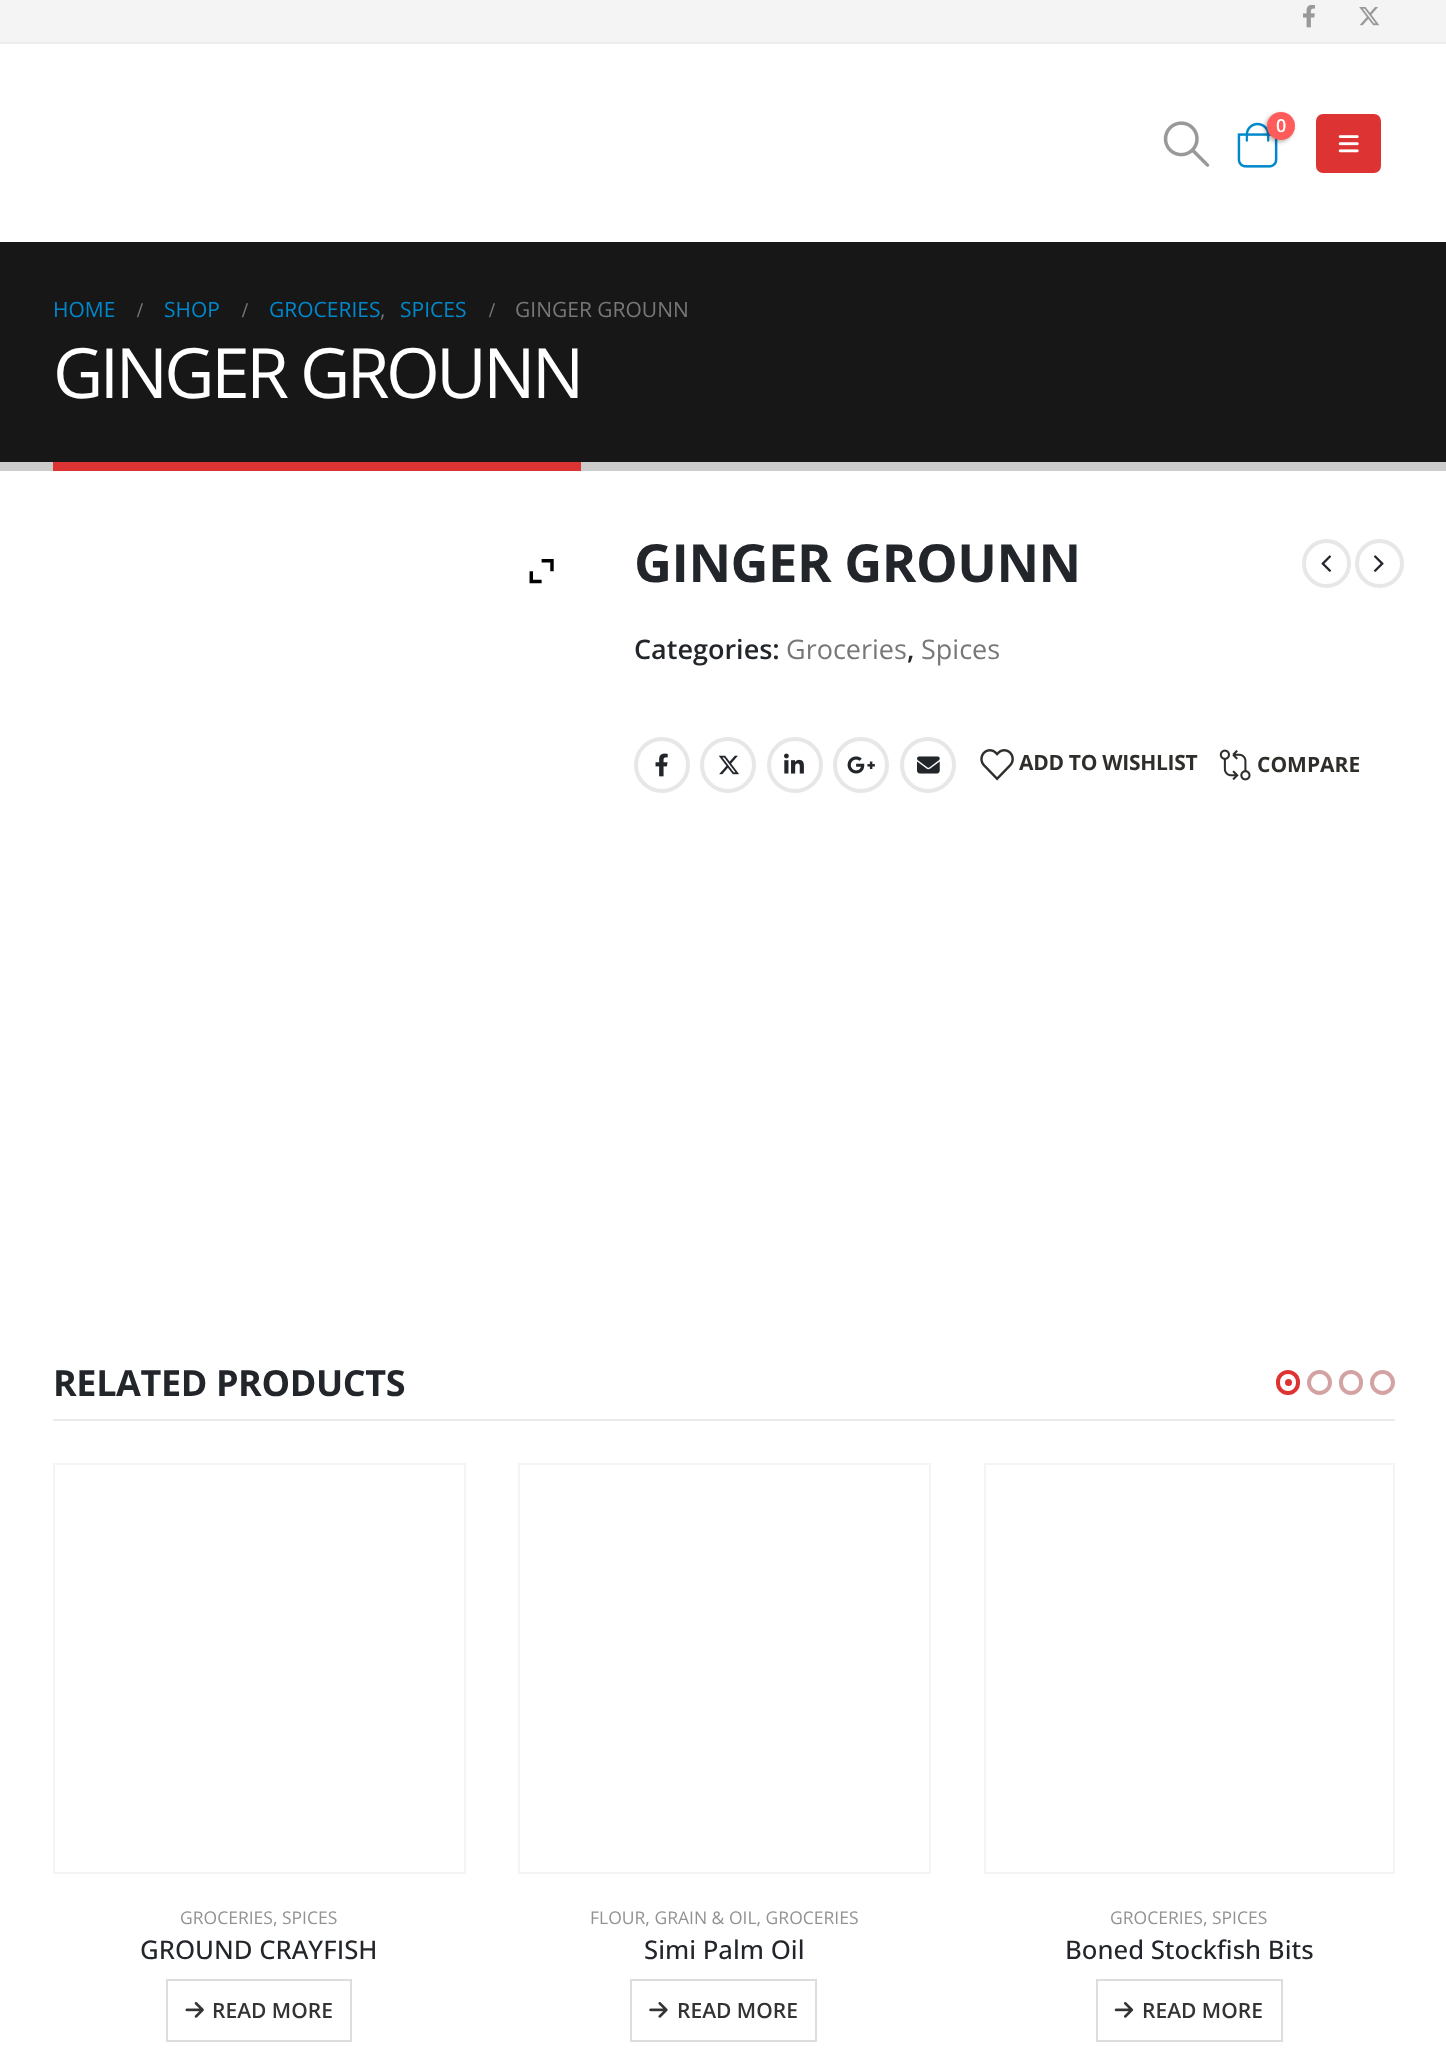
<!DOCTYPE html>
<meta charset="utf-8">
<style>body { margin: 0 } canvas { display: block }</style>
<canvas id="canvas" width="1446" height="2066"></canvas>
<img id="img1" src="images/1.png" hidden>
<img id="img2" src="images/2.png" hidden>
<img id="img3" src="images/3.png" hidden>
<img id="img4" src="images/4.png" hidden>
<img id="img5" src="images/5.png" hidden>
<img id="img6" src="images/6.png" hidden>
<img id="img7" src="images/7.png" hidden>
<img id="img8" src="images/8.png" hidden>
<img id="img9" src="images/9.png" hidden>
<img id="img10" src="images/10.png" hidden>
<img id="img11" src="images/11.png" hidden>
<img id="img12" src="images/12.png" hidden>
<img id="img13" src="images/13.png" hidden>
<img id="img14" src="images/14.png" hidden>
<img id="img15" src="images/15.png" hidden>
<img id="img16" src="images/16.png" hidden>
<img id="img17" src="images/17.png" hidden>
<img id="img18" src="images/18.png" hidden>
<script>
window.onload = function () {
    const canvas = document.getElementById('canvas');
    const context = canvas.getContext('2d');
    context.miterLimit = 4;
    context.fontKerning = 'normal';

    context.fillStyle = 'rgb(255, 255, 255)';
    context.fillRect(0, 0, 1446, 2066);
    context.fillStyle = 'rgb(244, 244, 244)';
    context.fillRect(0, 0, 1446, 42);
    context.fillStyle = 'rgb(237, 237, 237)';
    context.fillRect(0, 42, 1446, 2);
    context.drawImage(document.getElementById('img1'), 1303, 4, 12, 24);
    context.drawImage(document.getElementById('img2'), 1359, 7, 21, 19);
    context.drawImage(document.getElementById('img3'), 1163, 121, 47, 46);
    context.drawImage(document.getElementById('img4'), 1237, 122, 41, 46);
    context.fillStyle = 'rgba(0, 0, 0, 0.3)';
    context.filter = 'blur(2px)';
    context.beginPath();
    context.roundRect(1265, 114, 28, 28, 14);
    context.fill();
    context.filter = 'none';
    context.fillStyle = 'rgb(255, 91, 91)';
    context.beginPath();
    context.arc(1281, 126, 14, 0, 2 * Math.PI);
    context.fill();
    context.fillStyle = 'rgb(221, 51, 51)';
    context.beginPath();
    context.roundRect(1316, 114, 65, 59, 7);
    context.fill();
    context.drawImage(document.getElementById('img5'), 1338, 135, 21, 18);
    context.fillStyle = 'rgb(23, 23, 23)';
    context.fillRect(0, 242, 1446, 220);
    context.fillStyle = 'rgb(204, 204, 204)';
    context.fillRect(0, 462, 1446, 9);
    context.fillStyle = 'rgb(221, 51, 51)';
    context.fillRect(53, 462, 528, 9);
    context.drawImage(document.getElementById('img6'), 529, 559, 25, 25);
    context.beginPath();
    context.arc(1326.5, 563.5, 22.5, 0, 2 * Math.PI);
    context.strokeStyle = 'rgb(231, 231, 231)';
    context.lineWidth = 4;
    context.stroke();
    context.drawImage(document.getElementById('img7'), 1321, 555, 11, 17);
    context.beginPath();
    context.arc(1379.5, 563.5, 22.5, 0, 2 * Math.PI);
    context.stroke();
    context.drawImage(document.getElementById('img8'), 1373, 555, 11, 17);
    context.beginPath();
    context.arc(662, 765, 26, 0, 2 * Math.PI);
    context.stroke();
    context.drawImage(document.getElementById('img9'), 655, 753, 13, 24);
    context.beginPath();
    context.arc(728, 765, 26, 0, 2 * Math.PI);
    context.stroke();
    context.drawImage(document.getElementById('img10'), 718, 755, 21, 20);
    context.beginPath();
    context.arc(795, 765, 26, 0, 2 * Math.PI);
    context.stroke();
    context.drawImage(document.getElementById('img11'), 784, 753, 20, 21);
    context.beginPath();
    context.arc(861, 765, 26, 0, 2 * Math.PI);
    context.stroke();
    context.drawImage(document.getElementById('img12'), 847, 756, 28, 18);
    context.beginPath();
    context.arc(928, 765, 26, 0, 2 * Math.PI);
    context.stroke();
    context.drawImage(document.getElementById('img13'), 917, 756, 23, 18);
    context.drawImage(document.getElementById('img14'), 980, 749, 34, 32);
    context.drawImage(document.getElementById('img15'), 1219, 749, 32, 32);
    context.fillStyle = 'rgb(235, 235, 235)';
    context.fillRect(53, 1419, 1342, 2);
    context.beginPath();
    context.roundRect(1278, 1372, 20, 21, 10);
    context.strokeStyle = 'rgb(221, 51, 51)';
    context.stroke();
    context.fillStyle = 'rgb(221, 51, 51)';
    context.beginPath();
    context.arc(1288.5, 1382.5, 3.5, 0, 2 * Math.PI);
    context.fill();
    context.beginPath();
    context.arc(1319.5, 1382.5, 10.5, 0, 2 * Math.PI);
    context.strokeStyle = 'rgb(211, 163, 163)';
    context.stroke();
    context.beginPath();
    context.roundRect(1341, 1372, 20, 21, 10);
    context.stroke();
    context.beginPath();
    context.arc(1382.5, 1382.5, 10.5, 0, 2 * Math.PI);
    context.stroke();
    context.strokeStyle = 'rgb(244, 244, 244)';
    context.lineWidth = 2;
    context.strokeRect(54, 1464, 411, 409);
    context.strokeStyle = 'rgb(221, 221, 221)';
    context.strokeRect(167, 1980, 184, 61);
    context.drawImage(document.getElementById('img16'), 185, 2002, 19, 16);
    context.strokeStyle = 'rgb(244, 244, 244)';
    context.strokeRect(519, 1464, 411, 409);
    context.strokeStyle = 'rgb(221, 221, 221)';
    context.strokeRect(631, 1980, 185, 61);
    context.drawImage(document.getElementById('img17'), 649, 2002, 19, 16);
    context.strokeStyle = 'rgb(244, 244, 244)';
    context.strokeRect(985, 1464, 409, 409);
    context.strokeStyle = 'rgb(221, 221, 221)';
    context.strokeRect(1097, 1980, 185, 61);
    context.drawImage(document.getElementById('img18'), 1114, 2002, 20, 16);
    context.font = '600 18px Open Sans';
    context.fillStyle = 'rgb(255, 255, 255)';
    context.fillText('0', 1276, 132);
    context.font = '21px Open Sans';
    context.fillStyle = 'rgb(0, 136, 204)';
    context.fillText('HOME', 53, 317);
    context.font = 'bold 21px Liberation Serif';
    context.fillStyle = 'rgb(119, 119, 119)';
    context.fillText('/', 137, 317);
    context.font = '21px Open Sans';
    context.fillStyle = 'rgb(0, 136, 204)';
    context.fillText('SHOP', 164, 317);
    context.font = 'bold 21px Liberation Serif';
    context.fillStyle = 'rgb(119, 119, 119)';
    context.fillText('/', 242, 317);
    context.font = '21px Open Sans';
    context.fillStyle = 'rgb(0, 136, 204)';
    context.fillText('GROCERIES', 269, 317);
    context.fillStyle = 'rgb(119, 119, 119)';
    context.fillText(',', 380, 317);
    context.fillStyle = 'rgb(0, 136, 204)';
    context.fillText('SPICES', 400, 317);
    context.font = 'bold 21px Liberation Serif';
    context.fillStyle = 'rgb(119, 119, 119)';
    context.fillText('/', 489, 317);
    context.font = '21px Open Sans';
    context.fillText('GINGER GROUNN', 515, 317);
    context.letterSpacing = '-3.5px';
    context.font = '69.25px Open Sans';
    context.fillStyle = 'rgb(255, 255, 255)';
    context.fillText('GINGER GROUNN', 53, 398);
    context.letterSpacing = '-0.5px';
    context.font = 'bold 52.5px Open Sans';
    context.fillStyle = 'rgb(34, 37, 41)';
    context.fillText('GINGER GROUNN', 634, 582);
    context.letterSpacing = '0px';
    context.font = '600 27px Open Sans';
    context.fillText('Categories:', 634, 659);
    context.font = '27px Open Sans';
    context.fillStyle = 'rgb(119, 119, 119)';
    context.fillText('Groceries', 786, 659);
    context.font = '600 27px Open Sans';
    context.fillStyle = 'rgb(34, 37, 41)';
    context.fillText(',', 907, 659);
    context.font = '27px Open Sans';
    context.fillStyle = 'rgb(119, 119, 119)';
    context.fillText('Spices', 921, 659);
    context.letterSpacing = '-0.3px';
    context.font = 'bold 21px Open Sans';
    context.fillStyle = 'rgb(48, 46, 42)';
    context.fillText('ADD TO WISHLIST', 1019, 770);
    context.letterSpacing = '0px';
    context.fillText('COMPARE', 1257, 772);
    context.letterSpacing = '-0.4px';
    context.font = 'bold 36px Open Sans';
    context.fillStyle = 'rgb(34, 37, 41)';
    context.fillText('RELATED PRODUCTS', 53, 1396);
    context.letterSpacing = '0px';
    context.font = '17.5px Open Sans';
    context.fillStyle = 'rgb(146, 146, 146)';
    context.fillText('GROCERIES, SPICES', 180, 1924);
    context.font = '500 25.75px Open Sans';
    context.fillStyle = 'rgb(34, 37, 41)';
    context.fillText('GROUND CRAYFISH', 140, 1959);
    context.font = '600 21px Open Sans';
    context.fillStyle = 'rgb(51, 51, 51)';
    context.fillText('READ MORE', 212, 2018);
    context.font = '17.5px Open Sans';
    context.fillStyle = 'rgb(146, 146, 146)';
    context.fillText('FLOUR, GRAIN & OIL, GROCERIES', 590, 1924);
    context.font = '500 25.75px Open Sans';
    context.fillStyle = 'rgb(34, 37, 41)';
    context.fillText('Simi Palm Oil', 644, 1959);
    context.font = '600 21px Open Sans';
    context.fillStyle = 'rgb(51, 51, 51)';
    context.fillText('READ MORE', 677, 2018);
    context.font = '17.5px Open Sans';
    context.fillStyle = 'rgb(146, 146, 146)';
    context.fillText('GROCERIES, SPICES', 1110, 1924);
    context.font = '500 25.75px Open Sans';
    context.fillStyle = 'rgb(34, 37, 41)';
    context.fillText('Boned Stockfish Bits', 1065, 1959);
    context.font = '600 21px Open Sans';
    context.fillStyle = 'rgb(51, 51, 51)';
    context.fillText('READ MORE', 1142, 2018);
};
</script>
